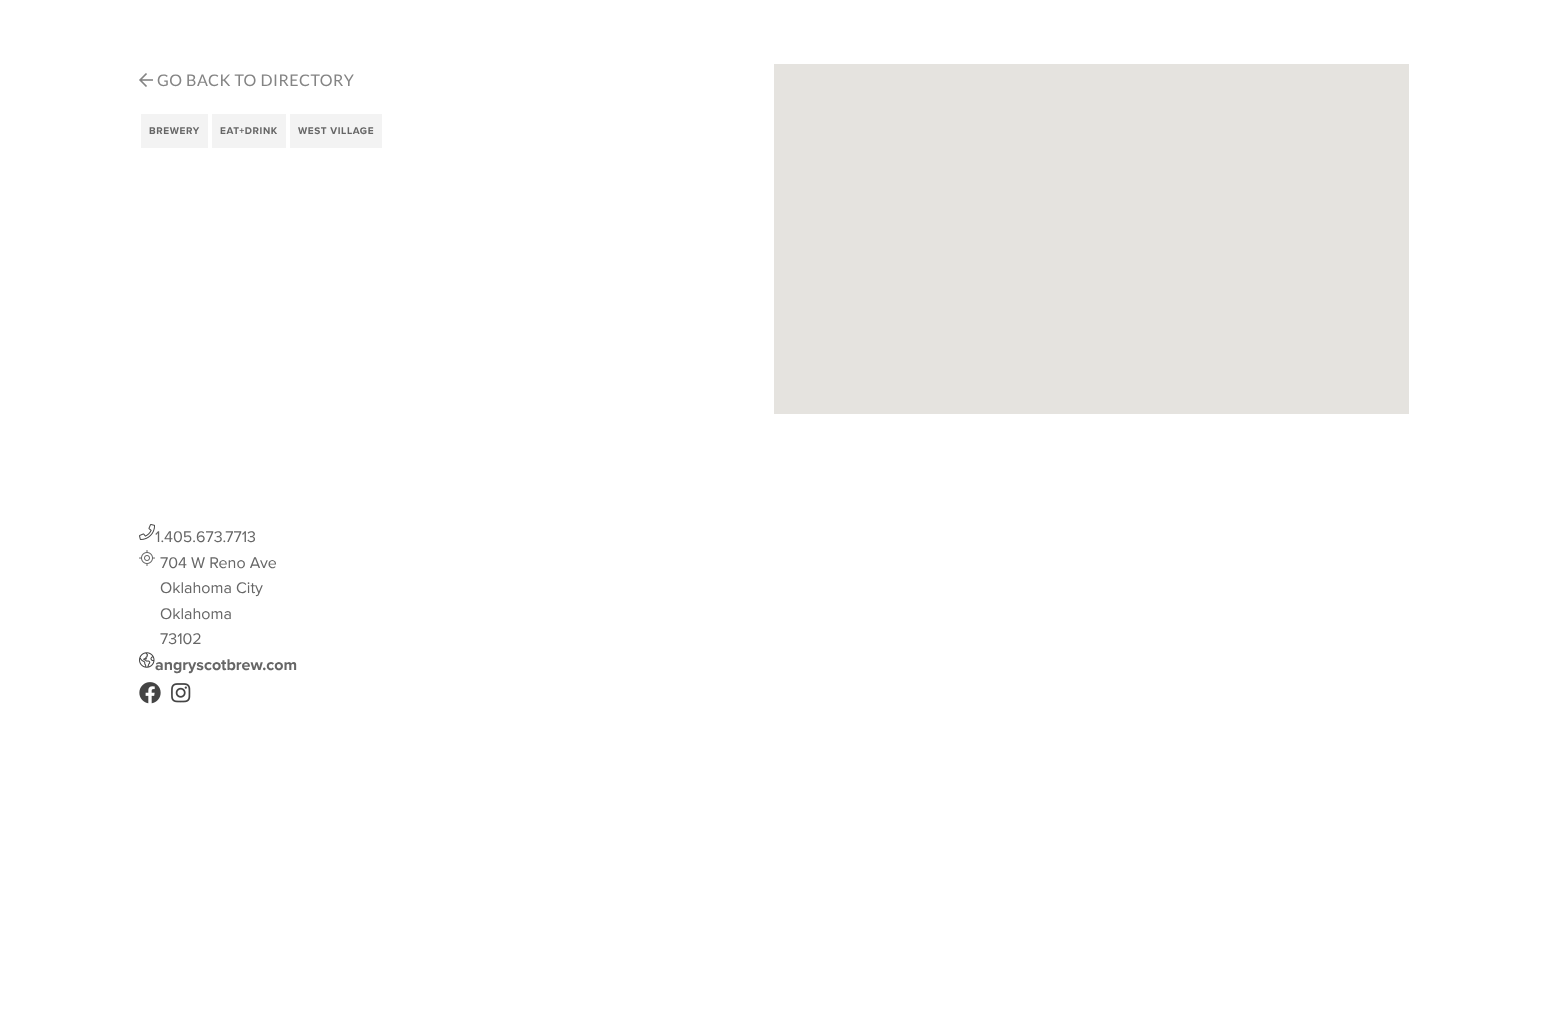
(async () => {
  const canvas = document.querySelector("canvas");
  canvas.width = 1548;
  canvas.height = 1023;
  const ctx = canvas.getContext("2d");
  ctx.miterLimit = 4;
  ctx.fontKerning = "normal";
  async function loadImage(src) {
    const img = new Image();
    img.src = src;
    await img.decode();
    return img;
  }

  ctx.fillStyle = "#ffffff";
  ctx.fillRect(0, 0, 1548, 1023);
  ctx.drawImage(await loadImage("img/1.png"), 139, 73, 14, 14);
  for (const [x, y, w, h, color] of [
    [141, 114, 67, 34, "#f3f3f3"],
    [212, 114, 74, 34, "#f3f3f3"],
    [290, 114, 92, 34, "#f3f3f3"],
  ]) {
    ctx.fillStyle = color;
    ctx.fillRect(x, y, w, h);
  }
  ctx.drawImage(await loadImage("img/2.png"), 139, 524, 16, 16);
  ctx.drawImage(await loadImage("img/3.png"), 139, 550, 16, 16);
  ctx.drawImage(await loadImage("img/4.png"), 139, 652, 16, 16);
  ctx.drawImage(await loadImage("img/5.png"), 139, 682, 22, 22);
  ctx.drawImage(await loadImage("img/6.png"), 171, 683, 20, 20);
  ctx.fillStyle = "#e5e3df";
  ctx.fillRect(774, 64, 635, 350);
  ctx.letterSpacing = "0.5px";
  ctx.font = "16px Lato";
  ctx.fillStyle = "#848484";
  ctx.fillText("GO BACK TO DIRECTORY", 157, 86);
  ctx.letterSpacing = "0.6px";
  ctx.font = "bold 10px Proxima Nova";
  ctx.fillStyle = "#666666";
  for (const [text, x, y] of [
    ["BREWERY", 149, 134],
    ["EAT+DRINK", 220, 134],
    ["WEST VILLAGE", 298, 134],
  ]) {
    ctx.fillText(text, x, y);
  }
  ctx.letterSpacing = "0px";
  ctx.font = "16px Proxima Nova";
  for (const [text, x, y] of [
    ["1.405.673.7713", 155, 542],
    ["704 W Reno Ave", 160, 568],
    ["Oklahoma City", 160, 593],
    ["Oklahoma", 160, 619],
    ["73102", 160, 644],
  ]) {
    ctx.fillText(text, x, y);
  }
  ctx.font = "bold 16px Proxima Nova";
  ctx.fillText("angryscotbrew.com", 155, 670);
})();
